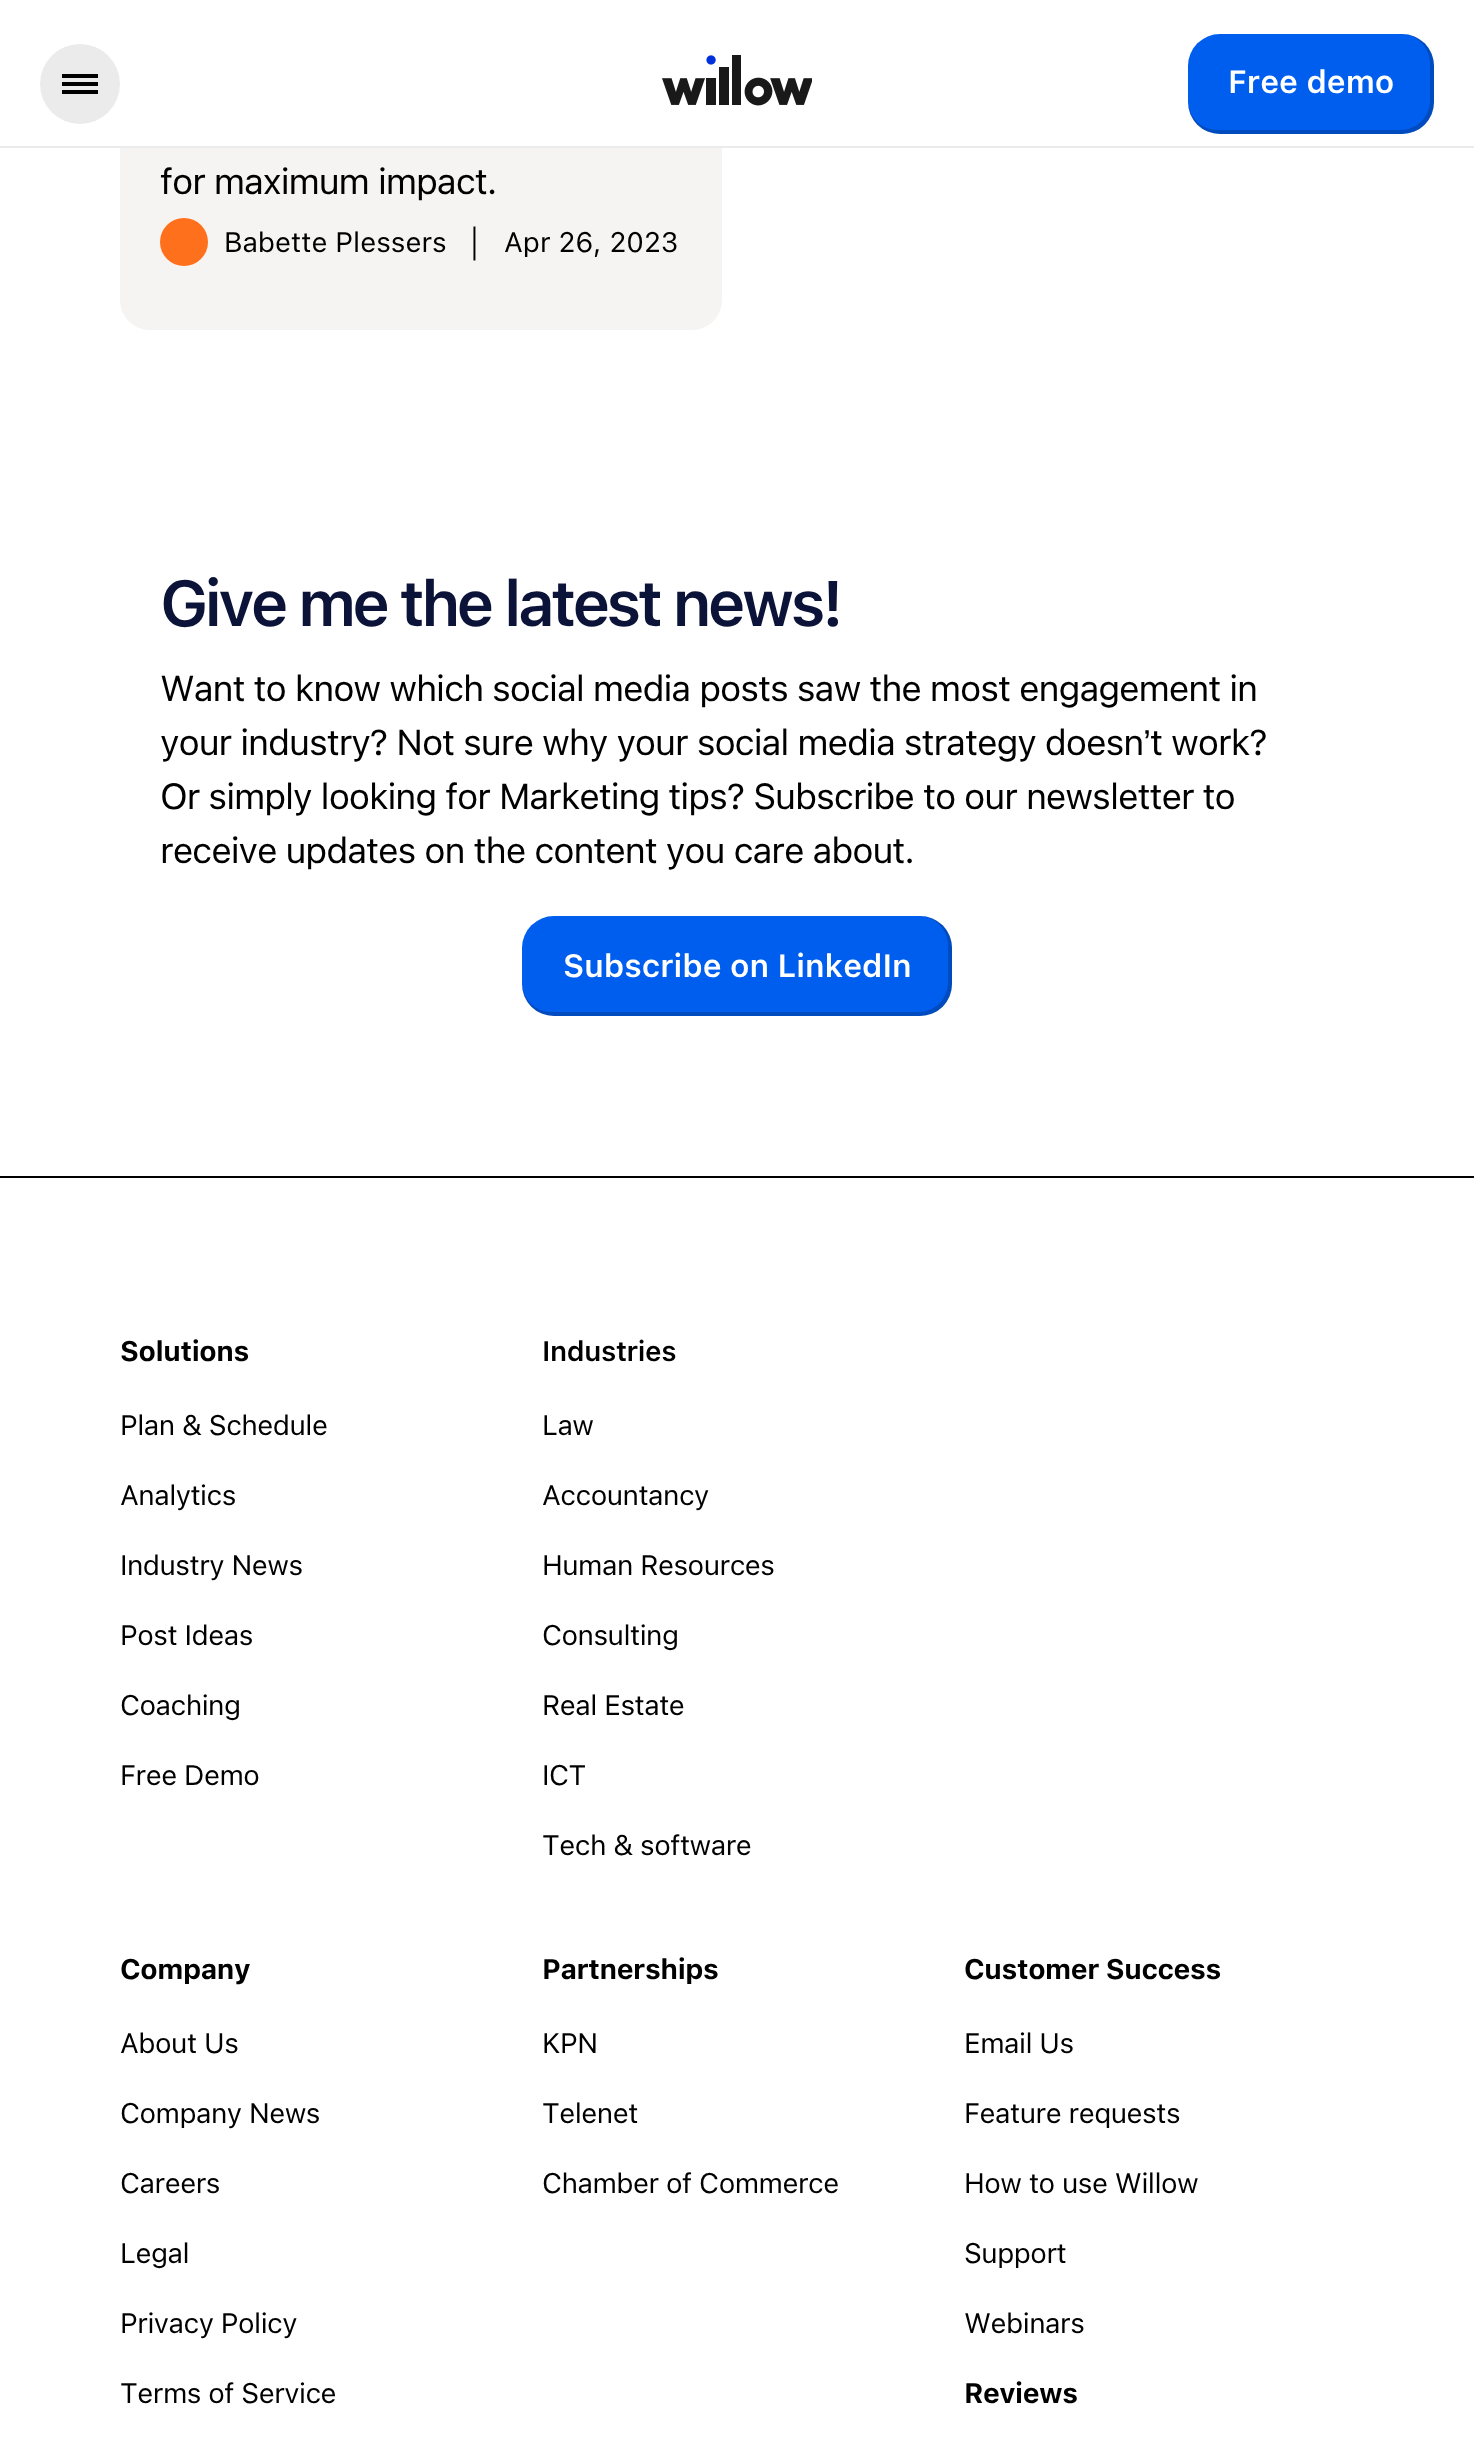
(async () => {
  const canvas = document.querySelector("canvas");
  canvas.width = 1474;
  canvas.height = 2446;
  const ctx = canvas.getContext("2d");
  ctx.miterLimit = 4;
  ctx.fontKerning = "normal";
  async function loadImage(src) {
    const img = new Image();
    img.src = src;
    await img.decode();
    return img;
  }
  let path;

  ctx.fillStyle = "#ffffff";
  ctx.fillRect(0, 0, 1474, 2446);
  ctx.fillStyle = "#f6f4f2";
  ctx.beginPath();
  ctx.roundRect(120, -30, 602, 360, 30);
  ctx.fill();
  ctx.fillStyle = "#ffffff";
  ctx.fillRect(120, 0, 602, 146);
  ctx.fillStyle = "#ebebeb";
  ctx.fillRect(0, 146, 1474, 2);
  ctx.beginPath();
  ctx.arc(80, 84, 40, 0, Math.PI * 2);
  ctx.fill();
  for (const [x, y, w, h, color] of [
    [62, 74, 36, 4, "#000000"],
    [62, 82, 36, 4, "#000000"],
    [62, 90, 36, 4, "#000000"],
  ]) {
    ctx.fillStyle = color;
    ctx.fillRect(x, y, w, h);
  }
  ctx.drawImage(await loadImage("img/1.png"), 662, 55, 150, 51);
  ctx.fillStyle = "#005eee";
  ctx.beginPath();
  ctx.roundRect(1188, 34, 246, 100, 32);
  ctx.fill();
  ctx.fillStyle = "rgba(0, 0, 0, 0.2)";
  path = new Path2D("M1188 100V102C1188 120 1202 134 1220 134H1402C1420 134 1434 120 1434 102V66C1434 48 1420 34 1402 34H1400C1417 34 1430 47 1430 64V100C1430 117 1417 130 1400 130H1218C1201 130 1188 117 1188 100Z");
  ctx.fill(path);
  ctx.fillStyle = "#ff701c";
  ctx.beginPath();
  ctx.arc(184, 242, 24, 0, Math.PI * 2);
  ctx.fill();
  ctx.fillStyle = "#005eee";
  ctx.beginPath();
  ctx.roundRect(522, 916, 430, 100, 32);
  ctx.fill();
  ctx.fillStyle = "rgba(0, 0, 0, 0.2)";
  path = new Path2D("M522 982V984C522 1002 536 1016 554 1016H920C938 1016 952 1002 952 984V948C952 930 938 916 920 916H918C935 916 948 929 948 946V982C948 999 935 1012 918 1012H552C535 1012 522 999 522 982Z");
  ctx.fill(path);
  ctx.fillStyle = "#000000";
  ctx.fillRect(0, 1176, 1474, 2);
  ctx.font = "600 32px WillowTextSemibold";
  ctx.fillStyle = "#ffffff";
  ctx.fillText("Free demo", 1228, 93);
  ctx.letterSpacing = "-1.08px";
  ctx.font = "36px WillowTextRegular";
  ctx.fillStyle = "#000000";
  ctx.fillText("for maximum impact.", 160, 194);
  ctx.letterSpacing = "0px";
  ctx.font = "28px WillowTextRegular";
  ctx.fillText("Babette Plessers", 224, 252);
  ctx.font = "28px Liberation Sans";
  ctx.fillText("│", 467, 252);
  ctx.font = "28px WillowTextRegular";
  ctx.fillText("Apr 26, 2023", 504, 252);
  ctx.letterSpacing = "-3.8px";
  ctx.font = "600 64px WillowTextSemibold";
  ctx.fillStyle = "#0c1338";
  ctx.fillText("Give me the latest news!", 160, 626);
  ctx.letterSpacing = "-1.08px";
  ctx.font = "36px WillowTextRegular";
  ctx.fillStyle = "#000000";
  ctx.fillText("Want to know which social media posts saw the most engagement in", 160, 701);
  ctx.fillText("your industry? Not sure why your social media strategy doesn", 160, 755);
  ctx.font = "36px Liberation Sans";
  ctx.fillText("’", 1143, 755);
  ctx.font = "36px WillowTextRegular";
  for (const [text, x, y] of [
    ["t work?", 1150, 755],
    ["Or simply looking for Marketing tips? Subscribe to our newsletter to", 160, 809],
    ["receive updates on the content you care about.", 160, 863],
  ]) {
    ctx.fillText(text, x, y);
  }
  ctx.letterSpacing = "0px";
  ctx.font = "600 32px WillowTextSemibold";
  ctx.fillStyle = "#ffffff";
  ctx.fillText("Subscribe on LinkedIn", 563, 977);
  ctx.letterSpacing = "-0.4px";
  ctx.font = "bold 28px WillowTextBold";
  ctx.fillStyle = "#000000";
  ctx.fillText("Solutions", 120, 1361);
  ctx.letterSpacing = "-0.5px";
  ctx.font = "28px WillowTextRegular";
  for (const [text, x, y] of [
    ["Plan & Schedule", 120, 1435],
    ["Analytics", 120, 1505],
    ["Industry News", 120, 1575],
    ["Post Ideas", 120, 1645],
    ["Coaching", 120, 1715],
    ["Free Demo", 120, 1785],
  ]) {
    ctx.fillText(text, x, y);
  }
  ctx.letterSpacing = "-0.4px";
  ctx.font = "600 28px WillowTextSemibold";
  ctx.fillText("Industries", 542, 1361);
  ctx.letterSpacing = "-0.5px";
  ctx.font = "28px WillowTextRegular";
  for (const [text, x, y] of [
    ["Law", 542, 1435],
    ["Accountancy", 542, 1505],
    ["Human Resources", 542, 1575],
    ["Consulting", 542, 1645],
    ["Real Estate", 542, 1715],
    ["ICT", 542, 1785],
    ["Tech & software", 542, 1855],
  ]) {
    ctx.fillText(text, x, y);
  }
  ctx.letterSpacing = "-0.4px";
  ctx.font = "bold 28px WillowTextBold";
  ctx.fillText("Company", 120, 1979);
  ctx.letterSpacing = "-0.5px";
  ctx.font = "28px WillowTextRegular";
  for (const [text, x, y] of [
    ["About Us", 120, 2053],
    ["Company News", 120, 2123],
    ["Careers", 120, 2193],
    ["Legal", 120, 2263],
    ["Privacy Policy", 120, 2333],
    ["Terms of Service", 120, 2403],
  ]) {
    ctx.fillText(text, x, y);
  }
  ctx.letterSpacing = "-0.4px";
  ctx.font = "bold 28px WillowTextBold";
  ctx.fillText("Partnerships", 542, 1979);
  ctx.letterSpacing = "-0.5px";
  ctx.font = "28px WillowTextRegular";
  for (const [text, x, y] of [
    ["KPN", 542, 2053],
    ["Telenet", 542, 2123],
    ["Chamber of Commerce", 542, 2193],
  ]) {
    ctx.fillText(text, x, y);
  }
  ctx.letterSpacing = "-0.4px";
  ctx.font = "bold 28px WillowTextBold";
  ctx.fillText("Customer Success", 964, 1979);
  ctx.letterSpacing = "-0.5px";
  ctx.font = "28px WillowTextRegular";
  for (const [text, x, y] of [
    ["Email Us", 964, 2053],
    ["Feature requests", 964, 2123],
    ["How to use Willow", 964, 2193],
    ["Support", 964, 2263],
    ["Webinars", 964, 2333],
  ]) {
    ctx.fillText(text, x, y);
  }
  ctx.font = "bold 28px WillowTextBold";
  ctx.fillText("Reviews", 964, 2403);
})();
